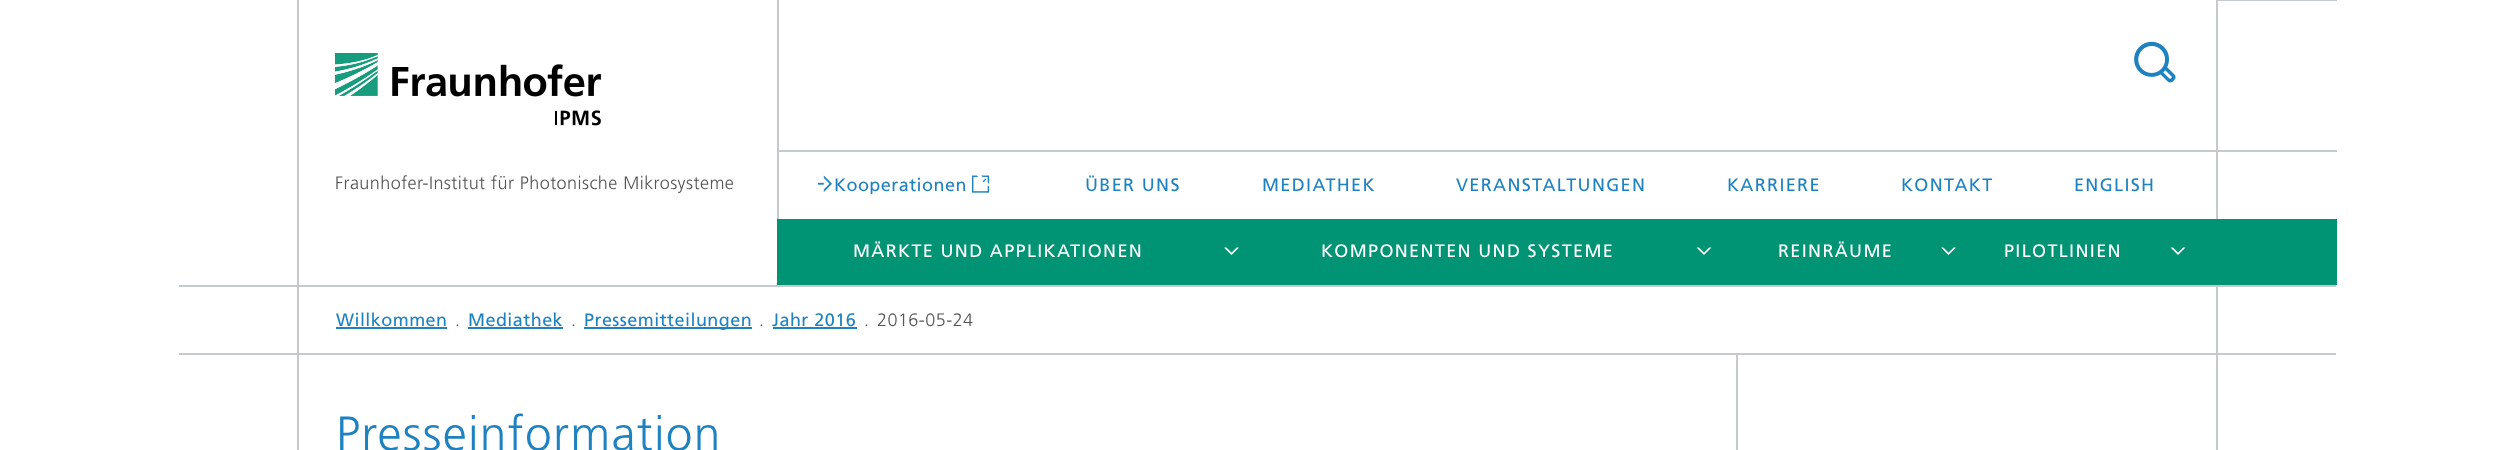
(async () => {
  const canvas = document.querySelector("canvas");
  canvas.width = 2514;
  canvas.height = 450;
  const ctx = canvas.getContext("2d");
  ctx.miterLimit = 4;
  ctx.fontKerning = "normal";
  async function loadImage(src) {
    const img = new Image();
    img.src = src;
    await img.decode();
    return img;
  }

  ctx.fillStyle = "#ffffff";
  ctx.fillRect(0, 0, 2514, 450);
  for (const [x, y, w, h, color] of [
    [297, 0, 2, 353, "#c7cacc"],
    [2217, 0, 120, 1, "#c7cacc"],
    [777, 150, 1560, 2, "#c7cacc"],
  ]) {
    ctx.fillStyle = color;
    ctx.fillRect(x, y, w, h);
  }
  ctx.drawImage(await loadImage("img/1.png"), 335, 53, 266, 73);
  ctx.drawImage(await loadImage("img/2.png"), 2134, 41, 42, 42);
  ctx.fillRect(2216, 0, 2, 219);
  ctx.fillRect(777, 0, 2, 219);
  ctx.drawImage(await loadImage("img/3.png"), 817, 175, 15, 17);
  ctx.drawImage(await loadImage("img/4.png"), 972, 175, 18, 18);
  ctx.fillStyle = "#009374";
  ctx.fillRect(777, 219, 1560, 66);
  ctx.drawImage(await loadImage("img/5.png"), 1224, 247, 15, 8);
  ctx.drawImage(await loadImage("img/6.png"), 1696, 247, 16, 8);
  ctx.drawImage(await loadImage("img/5.png"), 1941, 247, 15, 8);
  ctx.drawImage(await loadImage("img/6.png"), 2170, 247, 16, 8);
  for (const [x, y, w, h, color] of [
    [179, 285, 120, 2, "#c7cacc"],
    [297, 285, 2039, 2, "#c7cacc"],
    [179, 353, 120, 2, "#c7cacc"],
    [297, 353, 2039, 2, "#c7cacc"],
    [2216, 285, 2, 165, "#c7cacc"],
    [336, 327, 111, 2, "#1f82c0"],
    [468, 327, 95, 2, "#1f82c0"],
    [584, 327, 168, 2, "#1f82c0"],
    [773, 327, 84, 2, "#1f82c0"],
    [297, 353, 2, 97, "#c7cacc"],
    [1736, 354, 2, 96, "#c7cacc"],
  ]) {
    ctx.fillStyle = color;
    ctx.fillRect(x, y, w, h);
  }
  ctx.letterSpacing = "0.45px";
  ctx.font = "300 18px Frutiger";
  ctx.fillStyle = "#555555";
  ctx.fillText("Fraunhofer-Institut für Photonische Mikrosysteme", 335, 189);
  ctx.save();
  ctx.beginPath();
  ctx.rect(816, 174, 180, 20);
  ctx.clip();
  ctx.font = "18px Frutiger";
  ctx.fillStyle = "#1f82c0";
  ctx.fillText("Kooperationen", 834, 191);
  ctx.restore();
  ctx.letterSpacing = "1.35px";
  ctx.font = "18px Frutiger";
  ctx.fillStyle = "#1f82c0";
  for (const [text, x, y] of [
    ["ÜBER UNS", 1085, 191],
    ["MEDIATHEK", 1262, 191],
    ["VERANSTALTUNGEN", 1456, 191],
    ["KARRIERE", 1727, 191],
    ["KONTAKT", 1901, 191],
    ["ENGLISH", 2074, 191],
  ]) {
    ctx.fillText(text, x, y);
  }
  ctx.fillStyle = "#ffffff";
  for (const [text, x, y] of [
    ["MÄRKTE UND APPLIKATIONEN", 853, 257],
    ["KOMPONENTEN UND SYSTEME", 1321, 257],
    ["REINRÄUME", 1778, 257],
    ["PILOTLINIEN", 2004, 257],
  ]) {
    ctx.fillText(text, x, y);
  }
  ctx.letterSpacing = "0.45px";
  ctx.fillStyle = "#1f82c0";
  ctx.fillText("Willkommen", 336, 326);
  ctx.font = "300 18px Frutiger";
  ctx.fillStyle = "#555555";
  ctx.fillText(".", 455, 326);
  ctx.font = "18px Frutiger";
  ctx.fillStyle = "#1f82c0";
  ctx.fillText("Mediathek", 468, 326);
  ctx.font = "300 18px Frutiger";
  ctx.fillStyle = "#555555";
  ctx.fillText(".", 571, 326);
  ctx.font = "18px Frutiger";
  ctx.fillStyle = "#1f82c0";
  ctx.fillText("Pressemitteilungen", 584, 326);
  ctx.font = "300 18px Frutiger";
  ctx.fillStyle = "#555555";
  ctx.fillText(".", 759, 326);
  ctx.font = "18px Frutiger";
  ctx.fillStyle = "#1f82c0";
  ctx.fillText("Jahr 2016", 772, 326);
  ctx.font = "300 18px Frutiger";
  ctx.fillStyle = "#555555";
  ctx.fillText(".", 864, 326);
  ctx.fillText("2016-05-24", 877, 326);
  ctx.letterSpacing = "1.25px";
  ctx.font = "300 48px Frutiger";
  ctx.fillStyle = "#1f82c0";
  ctx.fillText("Presseinformation", 336, 450);
})();
